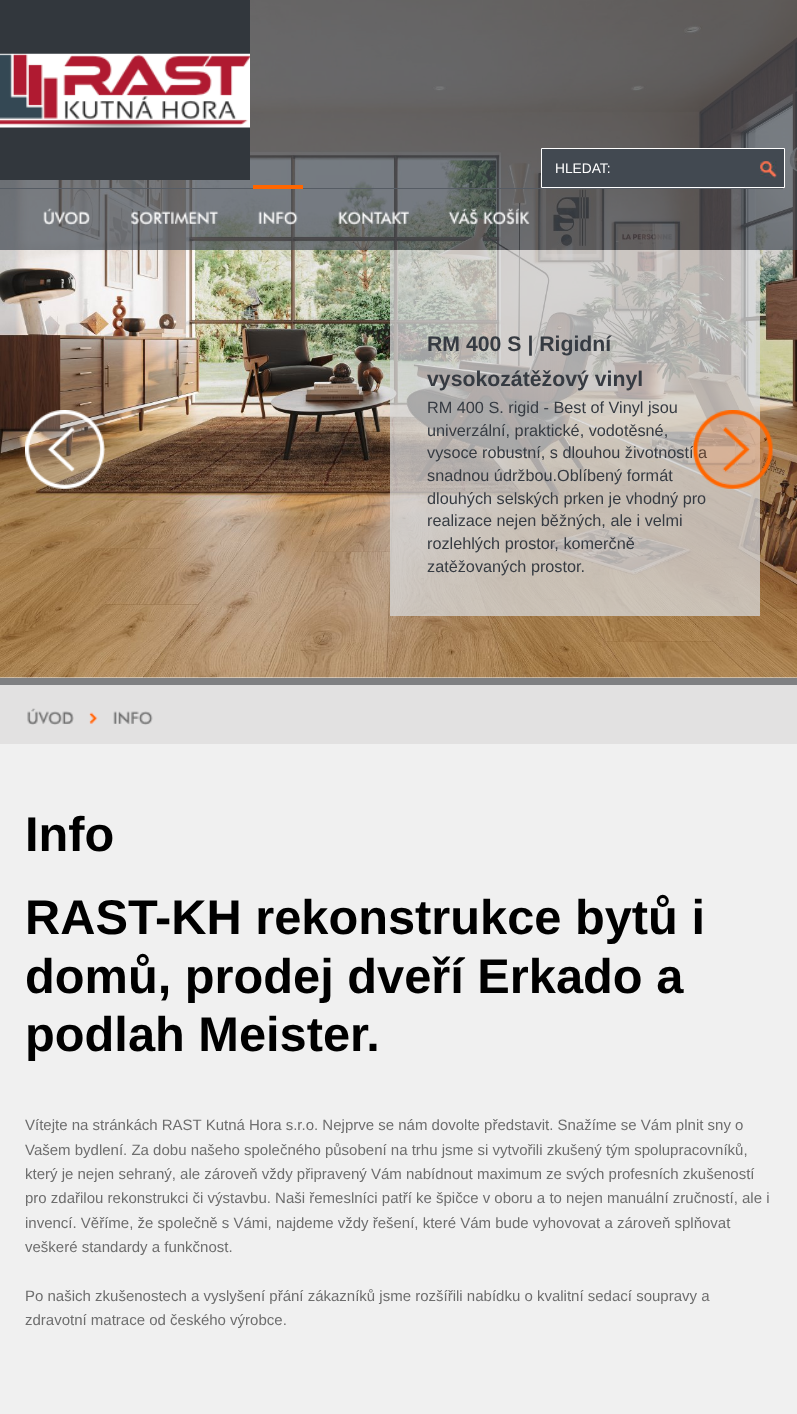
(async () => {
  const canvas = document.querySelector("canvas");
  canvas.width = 797;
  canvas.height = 1414;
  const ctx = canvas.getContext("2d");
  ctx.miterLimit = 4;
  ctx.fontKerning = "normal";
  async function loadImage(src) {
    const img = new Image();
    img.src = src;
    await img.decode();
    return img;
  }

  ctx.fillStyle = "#f0f0f0";
  ctx.fillRect(0, 0, 797, 1414);
  ctx.drawImage(await loadImage("img/10.png"), 0, 0, 797, 678);
  ctx.fillStyle = "rgba(67, 74, 82, 0.7)";
  ctx.fillRect(0, 0, 797, 250);
  ctx.fillStyle = "#32373d";
  ctx.fillRect(0, 0, 250, 180);
  ctx.drawImage(await loadImage("img/1.png"), 0, 53, 250, 75);
  ctx.fillStyle = "#424951";
  ctx.beginPath();
  ctx.rect(541.5, 148.5, 243, 39);
  ctx.fill();
  ctx.strokeStyle = "#ffffff";
  ctx.stroke();
  ctx.drawImage(await loadImage("img/2.png"), 760, 161, 17, 17);
  ctx.fillStyle = "#565c64";
  ctx.fillRect(0, 188, 783, 1);
  ctx.drawImage(await loadImage("img/3.png"), 43, 208, 47, 17);
  ctx.drawImage(await loadImage("img/4.png"), 131, 211, 88, 14);
  ctx.fillStyle = "#ff6600";
  ctx.fillRect(253, 185, 50, 4);
  ctx.drawImage(await loadImage("img/5.png"), 258, 211, 40, 14);
  ctx.drawImage(await loadImage("img/6.png"), 338, 211, 71, 14);
  ctx.drawImage(await loadImage("img/7.png"), 448, 208, 30, 17);
  ctx.drawImage(await loadImage("img/8.png"), 483, 208, 47, 17);
  ctx.drawImage(await loadImage("img/9.png"), 25, 410, 80, 79);
  for (const [x, y, w, h, color] of [
    [0, 678, 797, 7, "#7f8082"],
    [390, 250, 370, 366, "rgba(215, 216, 217, 0.75)"],
    [0, 685, 797, 59, "#e2e1e1"],
  ]) {
    ctx.fillStyle = color;
    ctx.fillRect(x, y, w, h);
  }
  ctx.drawImage(await loadImage("img/12.png"), 89, 712, 9, 12);
  ctx.drawImage(await loadImage("img/13.png"), 27, 708, 47, 17);
  ctx.drawImage(await loadImage("img/14.png"), 113, 711, 40, 14);
  ctx.font = "13.75px Liberation Sans";
  ctx.fillStyle = "#ffffff";
  ctx.fillText("HLEDAT:", 555, 173);
  ctx.font = "bold 21.25px Liberation Sans";
  ctx.fillStyle = "#363b42";
  ctx.fillText("RM 400 S | Rigidní", 427, 351);
  ctx.fillText("vysokozátěžový vinyl", 427, 386);
  ctx.font = "16.25px Liberation Sans";
  for (const [text, x, y] of [
    ["RM 400 S. rigid - Best of Vinyl jsou", 427, 413],
    ["univerzální, praktické, vodotěsné,", 427, 436],
    ["vysoce robustní, s dlouhou životností a", 427, 458],
    ["snadnou údržbou.Oblíbený formát", 427, 481],
    ["dlouhých selských prken je vhodný pro", 427, 504],
    ["realizace nejen běžných, ale i velmi", 427, 526],
    ["rozlehlých prostor, komerčně", 427, 549],
    ["zatěžovaných prostor.", 427, 572],
  ]) {
    ctx.fillText(text, x, y);
  }
  ctx.drawImage(await loadImage("img/11.png"), 692, 410, 81, 79);
  ctx.font = "bold 48.75px Liberation Sans";
  ctx.fillStyle = "#000000";
  for (const [text, x, y] of [
    ["Info", 25, 851],
    ["RAST-KH rekonstrukce bytů i", 25, 934],
    ["domů, prodej dveří Erkado a", 25, 993],
    ["podlah Meister.", 25, 1051],
  ]) {
    ctx.fillText(text, x, y);
  }
  ctx.font = "15px Liberation Sans";
  ctx.fillStyle = "#6e6e6e";
  for (const [text, x, y] of [
    ["Vítejte na stránkách RAST Kutná Hora s.r.o. Nejprve se nám dovolte představit. Snažíme se Vám plnit sny o", 25, 1130],
    ["Vašem bydlení. Za dobu našeho společného působení na trhu jsme si vytvořili zkušený tým spolupracovníků,", 25, 1155],
    ["který je nejen sehraný, ale zároveň vždy připravený Vám nabídnout maximum ze svých profesních zkušeností", 25, 1179],
    ["pro zdařilou rekonstrukci či výstavbu. Naši řemeslníci patří ke špičce v oboru a to nejen manuální zručností, ale i", 25, 1203],
    ["invencí. Věříme, že společně s Vámi, najdeme vždy řešení, které Vám bude vyhovovat a zároveň splňovat", 25, 1228],
    ["veškeré standardy a funkčnost.", 25, 1252],
    ["Po našich zkušenostech a vyslyšení přání zákazníků jsme rozšířili nabídku o kvalitní sedací soupravy a", 25, 1301],
    ["zdravotní matrace od českého výrobce.", 25, 1325],
  ]) {
    ctx.fillText(text, x, y);
  }
})();
